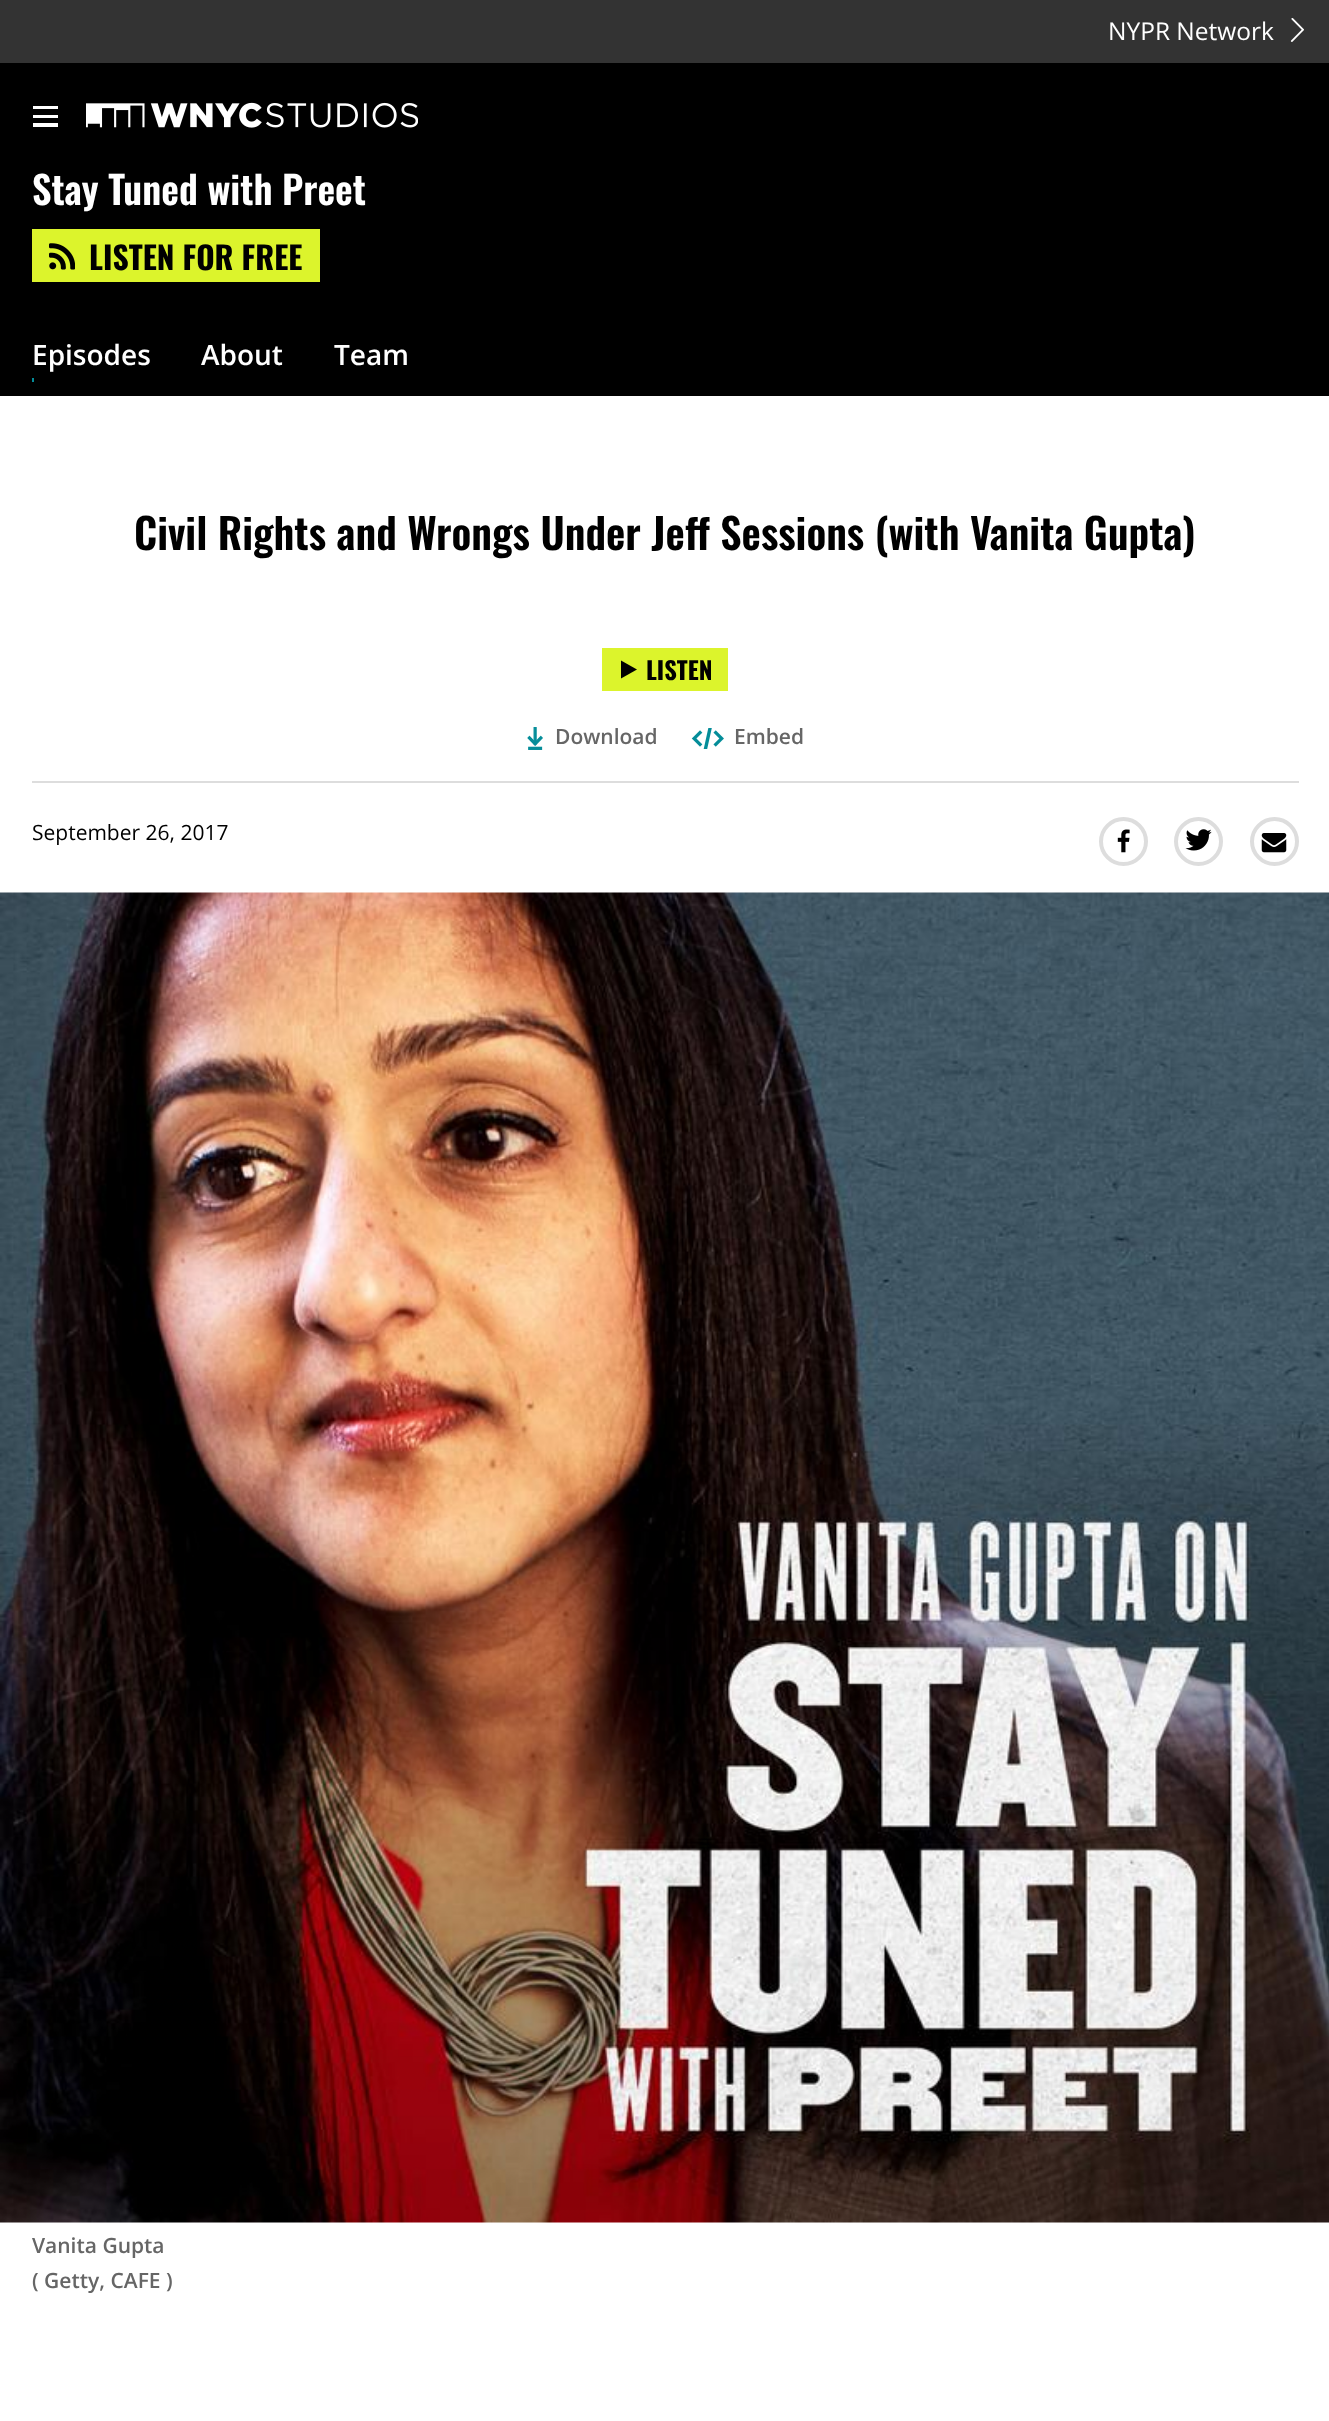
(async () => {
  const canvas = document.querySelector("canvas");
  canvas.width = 1329;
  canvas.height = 2421;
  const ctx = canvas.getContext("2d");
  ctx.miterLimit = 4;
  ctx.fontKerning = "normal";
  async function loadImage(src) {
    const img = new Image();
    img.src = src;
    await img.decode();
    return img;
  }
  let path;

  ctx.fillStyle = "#ffffff";
  ctx.fillRect(0, 0, 1329, 2421);
  ctx.fillStyle = "#333333";
  ctx.fillRect(0, 0, 1329, 63);
  ctx.drawImage(await loadImage("img/1.png"), 1290, 18, 14, 24);
  for (const [x, y, w, h, color] of [
    [0, 63, 1329, 333, "#000000"],
    [33, 106, 25, 3, "#ffffff"],
    [33, 115, 25, 3, "#ffffff"],
    [33, 123, 25, 4, "#ffffff"],
  ]) {
    ctx.fillStyle = color;
    ctx.fillRect(x, y, w, h);
  }
  ctx.drawImage(await loadImage("img/2.png"), 86, 102, 332, 26);
  ctx.fillStyle = "#dcf42c";
  ctx.fillRect(32, 229, 288, 53);
  ctx.drawImage(await loadImage("img/3.png"), 49, 243, 26, 27);
  ctx.fillStyle = "#048d99";
  ctx.fillRect(32, 378, 2, 4);
  ctx.fillStyle = "#dcf42c";
  ctx.fillRect(602, 648, 126, 43);
  ctx.fillStyle = "#000000";
  path = new Path2D("M637 669.5L621 678.5V660.5Z");
  ctx.fill(path, "evenodd");
  ctx.drawImage(await loadImage("img/4.png"), 527, 727, 16, 23);
  ctx.drawImage(await loadImage("img/5.png"), 691, 728, 33, 21);
  ctx.fillStyle = "#dddddd";
  ctx.fillRect(32, 781, 1267, 2);
  ctx.beginPath();
  ctx.arc(1123.5, 841.5, 22.5, 0, Math.PI * 2);
  ctx.strokeStyle = "#dddddd";
  ctx.lineWidth = 4;
  ctx.stroke();
  ctx.drawImage(await loadImage("img/6.png"), 1117, 829, 13, 24);
  ctx.beginPath();
  ctx.arc(1198.5, 841.5, 22.5, 0, Math.PI * 2);
  ctx.stroke();
  ctx.drawImage(await loadImage("img/7.png"), 1185, 829, 27, 22);
  ctx.beginPath();
  ctx.arc(1274.5, 841.5, 22.5, 0, Math.PI * 2);
  ctx.stroke();
  ctx.drawImage(await loadImage("img/8.png"), 1261, 833, 26, 20);
  ctx.drawImage(await loadImage("img/9.png"), 0, 892, 1329, 1331);
  ctx.font = "24.5px Open Sans";
  ctx.fillStyle = "#ffffff";
  ctx.fillText("NYPR Network", 1108, 40);
  ctx.font = "600 38.5px Oswald";
  ctx.fillText("Stay Tuned with Preet", 32, 205);
  ctx.font = "bold 31.5px Oswald";
  ctx.fillStyle = "#000000";
  ctx.fillText("LISTEN FOR FREE", 89, 270);
  ctx.font = "600 28px Open Sans";
  ctx.fillStyle = "#ffffff";
  for (const [text, x, y] of [
    ["Episodes", 32, 365],
    ["About", 201, 365],
    ["Team", 334, 365],
  ]) {
    ctx.fillText(text, x, y);
  }
  ctx.font = "600 42px Oswald";
  ctx.fillStyle = "#000000";
  ctx.fillText("Civil Rights and Wrongs Under Jeff Sessions (with Vanita Gupta)", 134, 550);
  ctx.font = "bold 24.5px Oswald";
  ctx.fillText("LISTEN", 646, 680);
  ctx.font = "600 21px Open Sans";
  ctx.fillStyle = "#666666";
  ctx.fillText("Download", 555, 744);
  ctx.fillText("Embed", 734, 744);
  ctx.font = "21px Open Sans";
  ctx.fillStyle = "#000000";
  ctx.fillText("September 26, 2017", 32, 840);
  ctx.font = "600 21px Open Sans";
  ctx.fillStyle = "#666666";
  ctx.fillText("Vanita Gupta", 32, 2253);
  ctx.fillText("( Getty, CAFE )", 32, 2288);
})();
